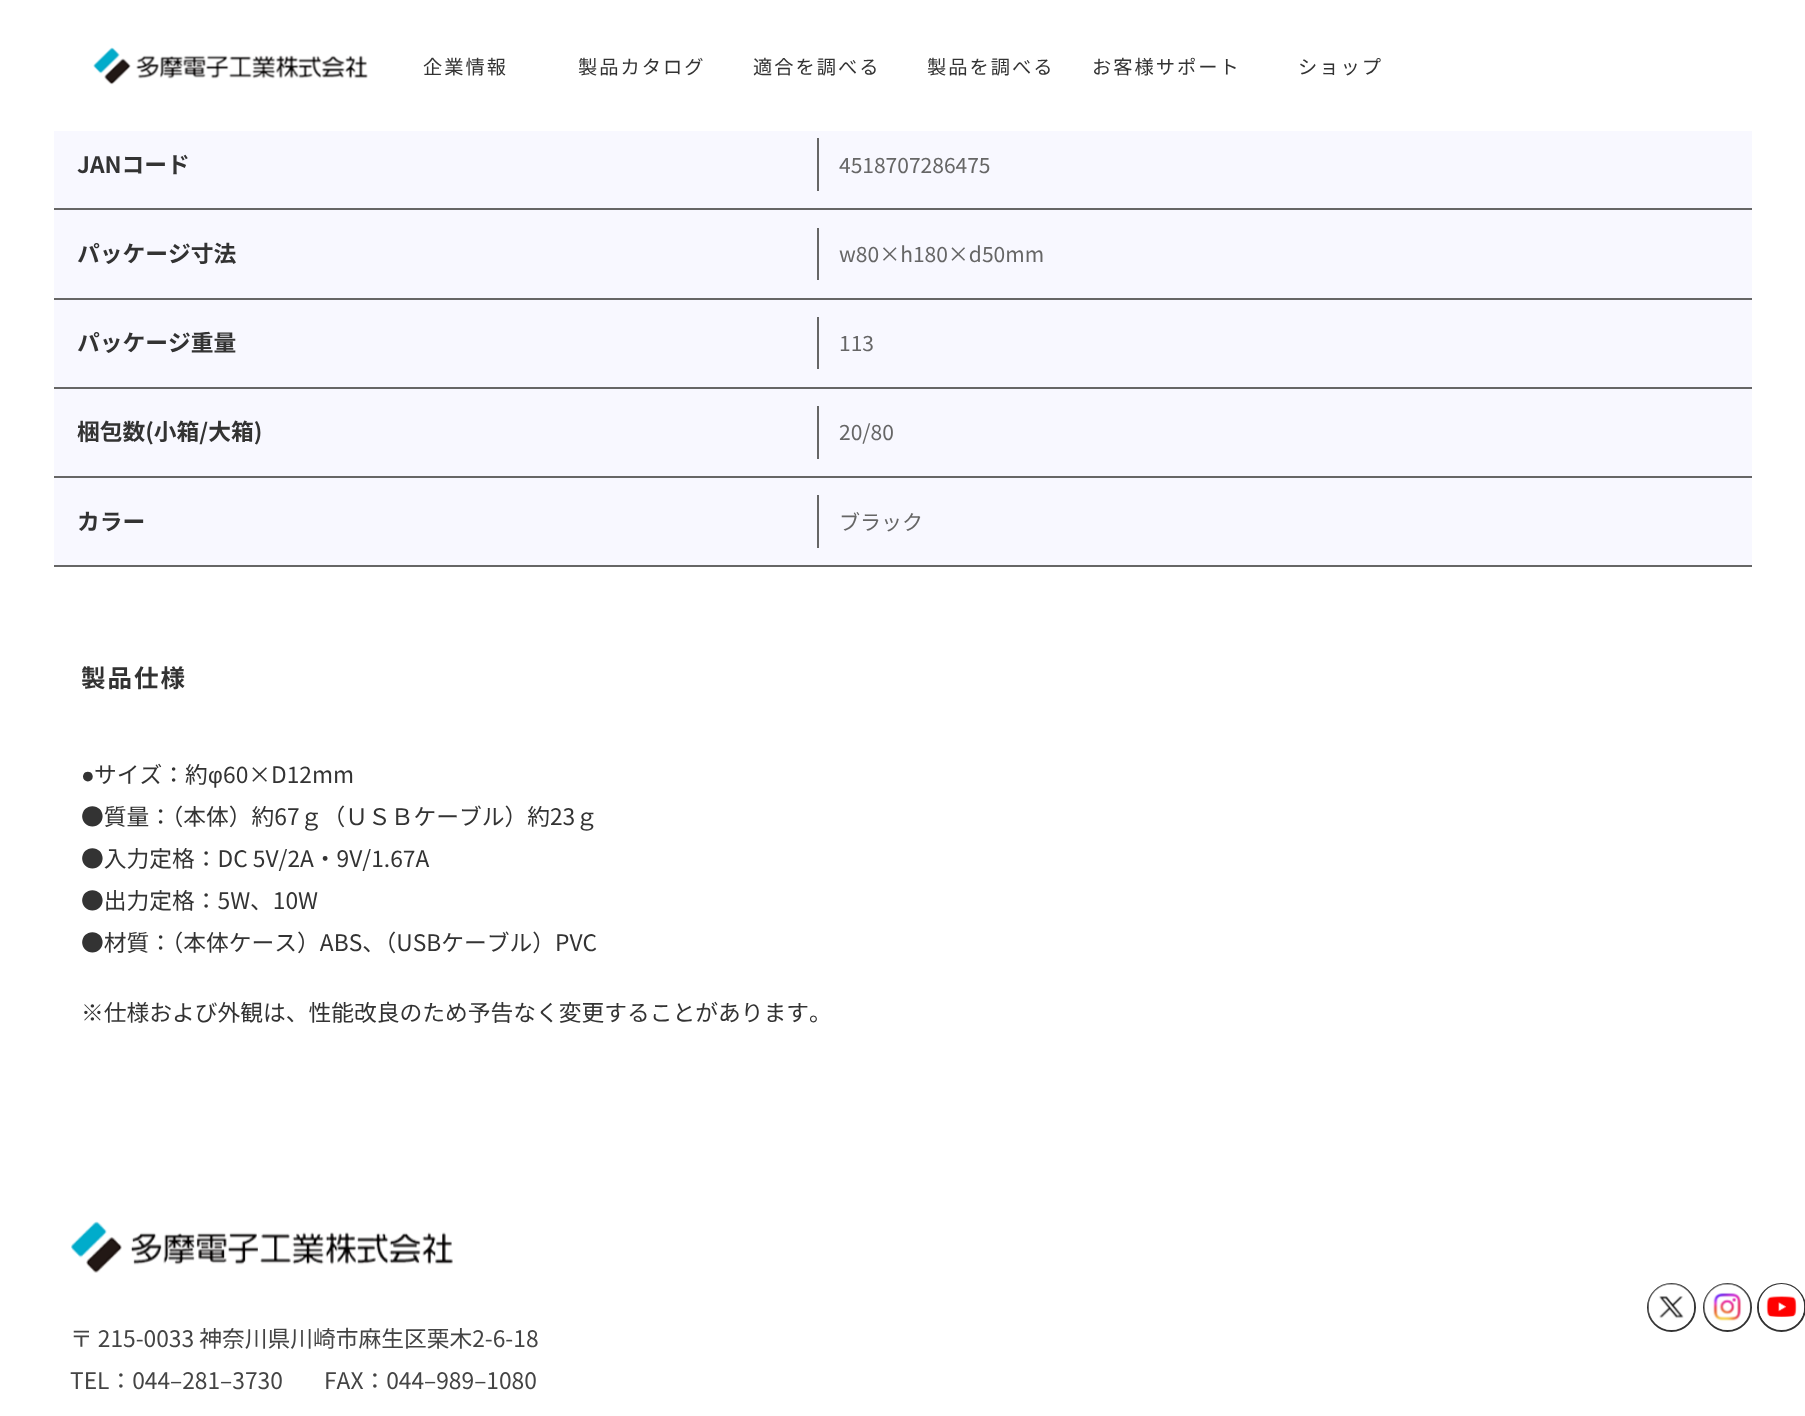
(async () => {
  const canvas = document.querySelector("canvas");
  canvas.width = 1805;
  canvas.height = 1416;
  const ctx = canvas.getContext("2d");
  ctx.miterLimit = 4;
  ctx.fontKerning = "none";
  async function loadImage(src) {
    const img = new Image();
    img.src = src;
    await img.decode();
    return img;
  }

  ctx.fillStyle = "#ffffff";
  ctx.fillRect(0, 0, 1805, 1416);
  ctx.drawImage(await loadImage("img/1.png"), 93, 47, 275, 38);
  for (const [x, y, w, h, color] of [
    [54, 131, 1698, 434, "#f8f8ff"],
    [54, 565, 1698, 2, "#666666"],
    [817, 138, 2, 53, "#666666"],
    [54, 208, 1698, 2, "#666666"],
    [817, 228, 2, 52, "#666666"],
    [54, 298, 1698, 2, "#666666"],
    [817, 317, 2, 52, "#666666"],
    [54, 387, 1698, 2, "#666666"],
    [817, 406, 2, 53, "#666666"],
    [54, 476, 1698, 2, "#666666"],
    [817, 495, 2, 53, "#666666"],
  ]) {
    ctx.fillStyle = color;
    ctx.fillRect(x, y, w, h);
  }
  ctx.beginPath();
  ctx.arc(1671.5, 1307.5, 23.5, 0, Math.PI * 2);
  ctx.strokeStyle = "#333333";
  ctx.lineWidth = 2;
  ctx.stroke();
  ctx.drawImage(await loadImage("img/2.png"), 1648, 1283, 47, 47);
  ctx.beginPath();
  ctx.arc(1727.5, 1307.5, 23.5, 0, Math.PI * 2);
  ctx.stroke();
  ctx.drawImage(await loadImage("img/3.png"), 1704, 1283, 47, 47);
  ctx.beginPath();
  ctx.arc(1781.5, 1307.5, 23.5, 0, Math.PI * 2);
  ctx.stroke();
  ctx.drawImage(await loadImage("img/4.png"), 1758, 1284, 47, 46);
  ctx.drawImage(await loadImage("img/5.png"), 71, 1221, 382, 52);
  ctx.letterSpacing = "2px";
  ctx.font = "19.25px Noto Sans JP";
  ctx.fillStyle = "#333333";
  for (const [text, x, y] of [
    ["企業情報", 423, 74],
    ["製品カタログ", 578, 74],
    ["適合を調べる", 753, 74],
    ["製品を調べる", 927, 74],
    ["お客様サポート", 1092, 74],
    ["ショップ", 1298, 74],
  ]) {
    ctx.fillText(text, x, y);
  }
  ctx.letterSpacing = "0px";
  ctx.font = "bold 22.75px Noto Sans JP";
  ctx.fillText("JANコード", 77, 173);
  ctx.font = "21px Noto Sans JP";
  ctx.fillStyle = "#666666";
  ctx.fillText("4518707286475", 839, 173);
  ctx.font = "bold 22.75px Noto Sans JP";
  ctx.fillStyle = "#333333";
  ctx.fillText("パッケージ寸法", 77, 262);
  ctx.font = "21px Noto Sans JP";
  ctx.fillStyle = "#666666";
  ctx.fillText("w80×h180×d50mm", 839, 262);
  ctx.font = "bold 22.75px Noto Sans JP";
  ctx.fillStyle = "#333333";
  ctx.fillText("パッケージ重量", 77, 351);
  ctx.font = "21px Noto Sans JP";
  ctx.fillStyle = "#666666";
  ctx.fillText("113", 839, 351);
  ctx.font = "bold 22.75px Noto Sans JP";
  ctx.fillStyle = "#333333";
  ctx.fillText("梱包数(小箱/大箱)", 77, 440);
  ctx.font = "21px Noto Sans JP";
  ctx.fillStyle = "#666666";
  ctx.fillText("20/80", 839, 440);
  ctx.font = "bold 22.75px Noto Sans JP";
  ctx.fillStyle = "#333333";
  ctx.fillText("カラー", 77, 530);
  ctx.font = "21px Noto Sans JP";
  ctx.fillStyle = "#666666";
  ctx.fillText("ブラック", 839, 530);
  ctx.letterSpacing = "2px";
  ctx.font = "bold 24.5px Noto Sans JP";
  ctx.fillStyle = "#333333";
  ctx.fillText("製品仕様", 81, 687);
  ctx.letterSpacing = "0px";
  ctx.font = "22.75px Liberation Sans";
  ctx.fillText("●", 81, 783);
  ctx.font = "22.75px Noto Sans JP";
  ctx.fillText("サイズ：約", 94, 783);
  ctx.font = "22.75px Liberation Sans";
  ctx.fillText("φ", 208, 783);
  ctx.font = "22.75px Noto Sans JP";
  for (const [text, x, y] of [
    ["60×D12mm", 223, 783],
    ["●質量：（本体）約67ｇ（ＵＳＢケーブル）約23ｇ", 81, 825],
    ["●入力定格：DC 5V/2A・9V/1.67A", 81, 867],
    ["●出力定格：5W、10W", 81, 909],
    ["●材質：（本体ケース）ABS、（USBケーブル）PVC", 81, 951],
    ["※仕様および外観は、性能改良のため予告なく変更することがあります。", 81, 1021],
  ]) {
    ctx.fillText(text, x, y);
  }
  ctx.fillStyle = "#444444";
  for (const [text, x, y] of [
    ["〒 215-0033 神奈川県川崎市麻生区栗木2-6-18", 70, 1347],
    ["TEL：044–281–3730", 70, 1389],
    ["FAX：044–989–1080", 324, 1389],
  ]) {
    ctx.fillText(text, x, y);
  }
})();
